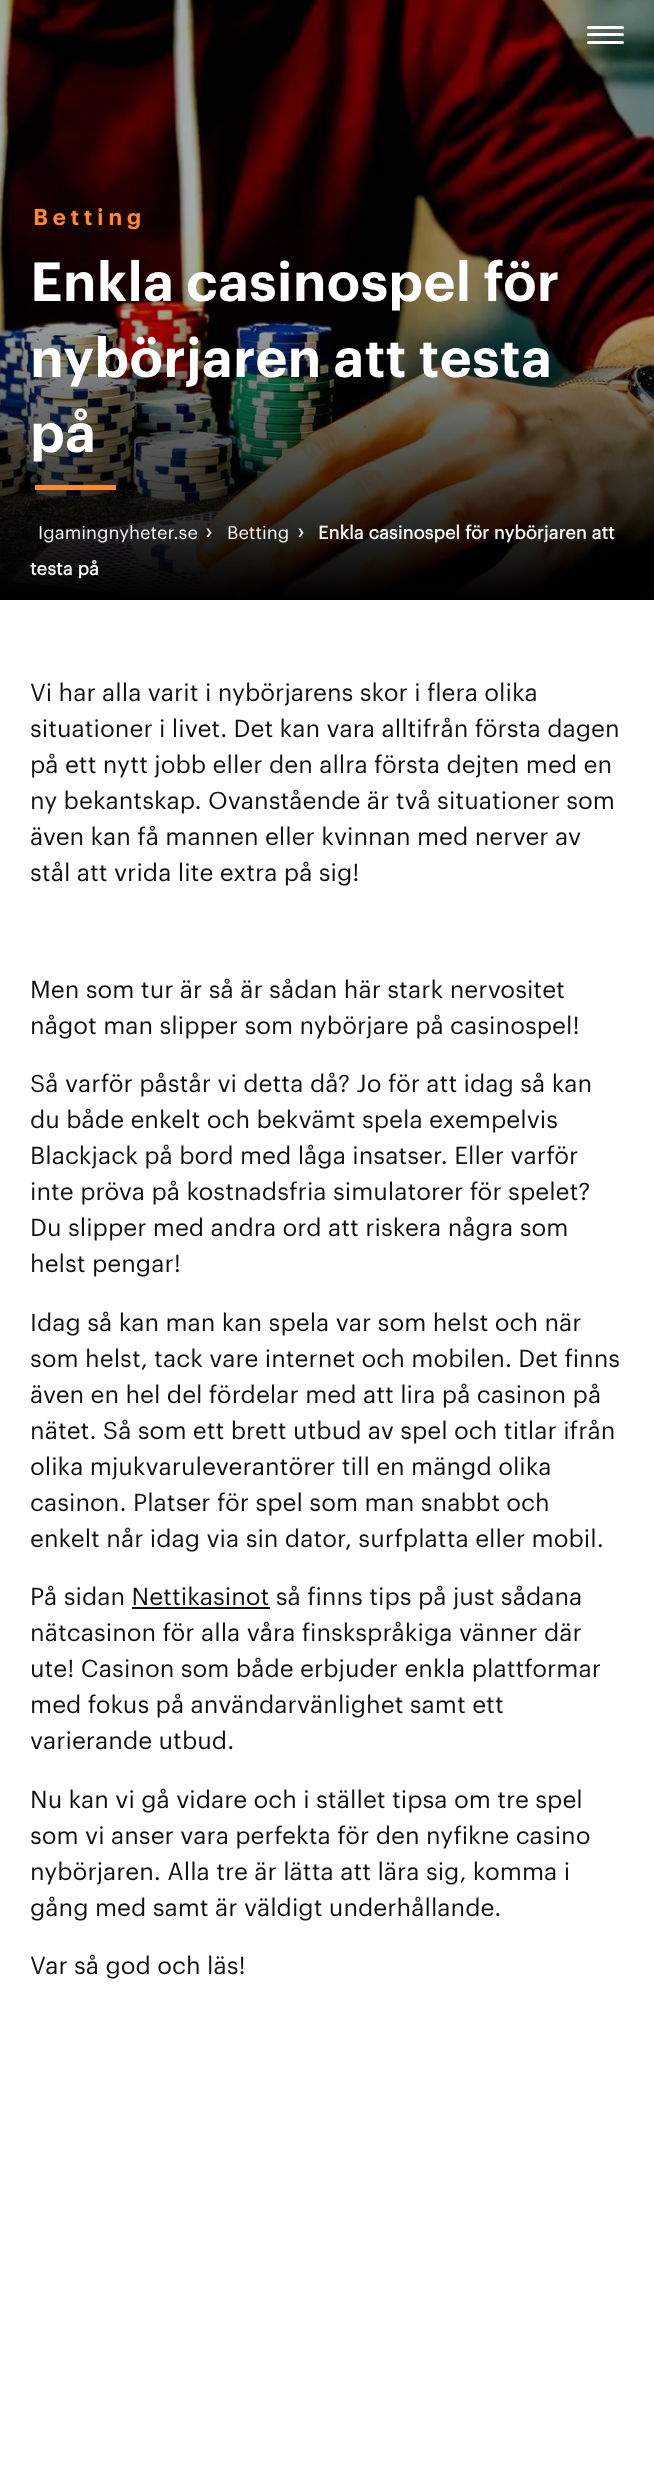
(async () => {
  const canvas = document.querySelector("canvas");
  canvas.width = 654;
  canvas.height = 2488;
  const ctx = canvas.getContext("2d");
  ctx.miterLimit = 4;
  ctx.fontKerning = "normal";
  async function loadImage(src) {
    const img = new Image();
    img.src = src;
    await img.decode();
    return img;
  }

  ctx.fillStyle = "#ffffff";
  ctx.fillRect(0, 0, 654, 2488);
  ctx.drawImage(await loadImage("img/1.png"), 0, 0, 654, 600);
  ctx.beginPath();
  ctx.roundRect(587, 33, 37, 3, 1.5);
  ctx.fill();
  ctx.beginPath();
  ctx.roundRect(587, 26, 37, 3, 1.5);
  ctx.fill();
  ctx.beginPath();
  ctx.roundRect(587, 41, 37, 3, 1.5);
  ctx.fill();
  ctx.fillStyle = "#ff892d";
  ctx.fillRect(35, 485, 81, 5);
  ctx.fillStyle = "#101010";
  ctx.fillRect(132, 1607, 138, 2);
  ctx.letterSpacing = "4.5px";
  ctx.font = "600 22.5px Graphik";
  ctx.fillStyle = "#ff892d";
  ctx.fillText("Betting", 33, 225);
  ctx.letterSpacing = "0px";
  ctx.font = "600 54px Graphik";
  ctx.fillStyle = "#ffffff";
  for (const [text, x, y] of [
    ["Enkla casinospel för", 30, 301],
    ["nybörjaren att testa", 30, 377],
    ["på", 30, 452],
  ]) {
    ctx.fillText(text, x, y);
  }
  ctx.font = "18px Graphik";
  ctx.fillStyle = "#f6f6f6";
  ctx.fillText("Igamingnyheter.se", 38, 539);
  ctx.font = "24px Graphik";
  ctx.fillText("›", 205, 539);
  ctx.font = "18px Graphik";
  ctx.fillText("Betting", 227, 539);
  ctx.font = "24px Graphik";
  ctx.fillText("›", 297, 539);
  ctx.font = "bold 18px Graphik";
  ctx.fillText("Enkla casinospel för nybörjaren att", 318, 539);
  ctx.fillText("testa på", 30, 575);
  ctx.font = "24px Graphik";
  ctx.fillStyle = "#101010";
  for (const [text, x, y] of [
    ["Vi har alla varit i nybörjarens skor i flera olika", 30, 701],
    ["situationer i livet. Det kan vara alltifrån första dagen", 30, 737],
    ["på ett nytt jobb eller den allra första dejten med en", 30, 773],
    ["ny bekantskap. Ovanstående är två situationer som", 30, 809],
    ["även kan få mannen eller kvinnan med nerver av", 30, 845],
    ["stål att vrida lite extra på sig!", 30, 881],
    ["Men som tur är så är sådan här stark nervositet", 30, 998],
    ["något man slipper som nybörjare på casinospel!", 30, 1034],
    ["Så varför påstår vi detta då? Jo för att idag så kan", 30, 1092],
    ["du både enkelt och bekvämt spela exempelvis", 30, 1128],
    ["Blackjack på bord med låga insatser. Eller varför", 30, 1164],
    ["inte pröva på kostnadsfria simulatorer för spelet?", 30, 1200],
    ["Du slipper med andra ord att riskera några som", 30, 1236],
    ["helst pengar!", 30, 1272],
    ["Idag så kan man kan spela var som helst och när", 30, 1331],
    ["som helst, tack vare internet och mobilen. Det finns", 30, 1367],
    ["även en hel del fördelar med att lira på casinon på", 30, 1403],
    ["nätet. Så som ett brett utbud av spel och titlar ifrån", 30, 1439],
    ["olika mjukvaruleverantörer till en mängd olika", 30, 1475],
    ["casinon. Platser för spel som man snabbt och", 30, 1511],
    ["enkelt når idag via sin dator, surfplatta eller mobil.", 30, 1547],
    ["På sidan Nettikasinot så finns tips på just sådana", 30, 1605],
    ["nätcasinon för alla våra finskspråkiga vänner där", 30, 1641],
    ["ute! Casinon som både erbjuder enkla plattformar", 30, 1677],
    ["med fokus på användarvänlighet samt ett", 30, 1713],
    ["varierande utbud.", 30, 1749],
    ["Nu kan vi gå vidare och i stället tipsa om tre spel", 30, 1808],
    ["som vi anser vara perfekta för den nyfikne casino", 30, 1844],
    ["nybörjaren. Alla tre är lätta att lära sig, komma i", 30, 1880],
    ["gång med samt är väldigt underhållande.", 30, 1916],
    ["Var så god och läs!", 30, 1974],
  ]) {
    ctx.fillText(text, x, y);
  }
})();
